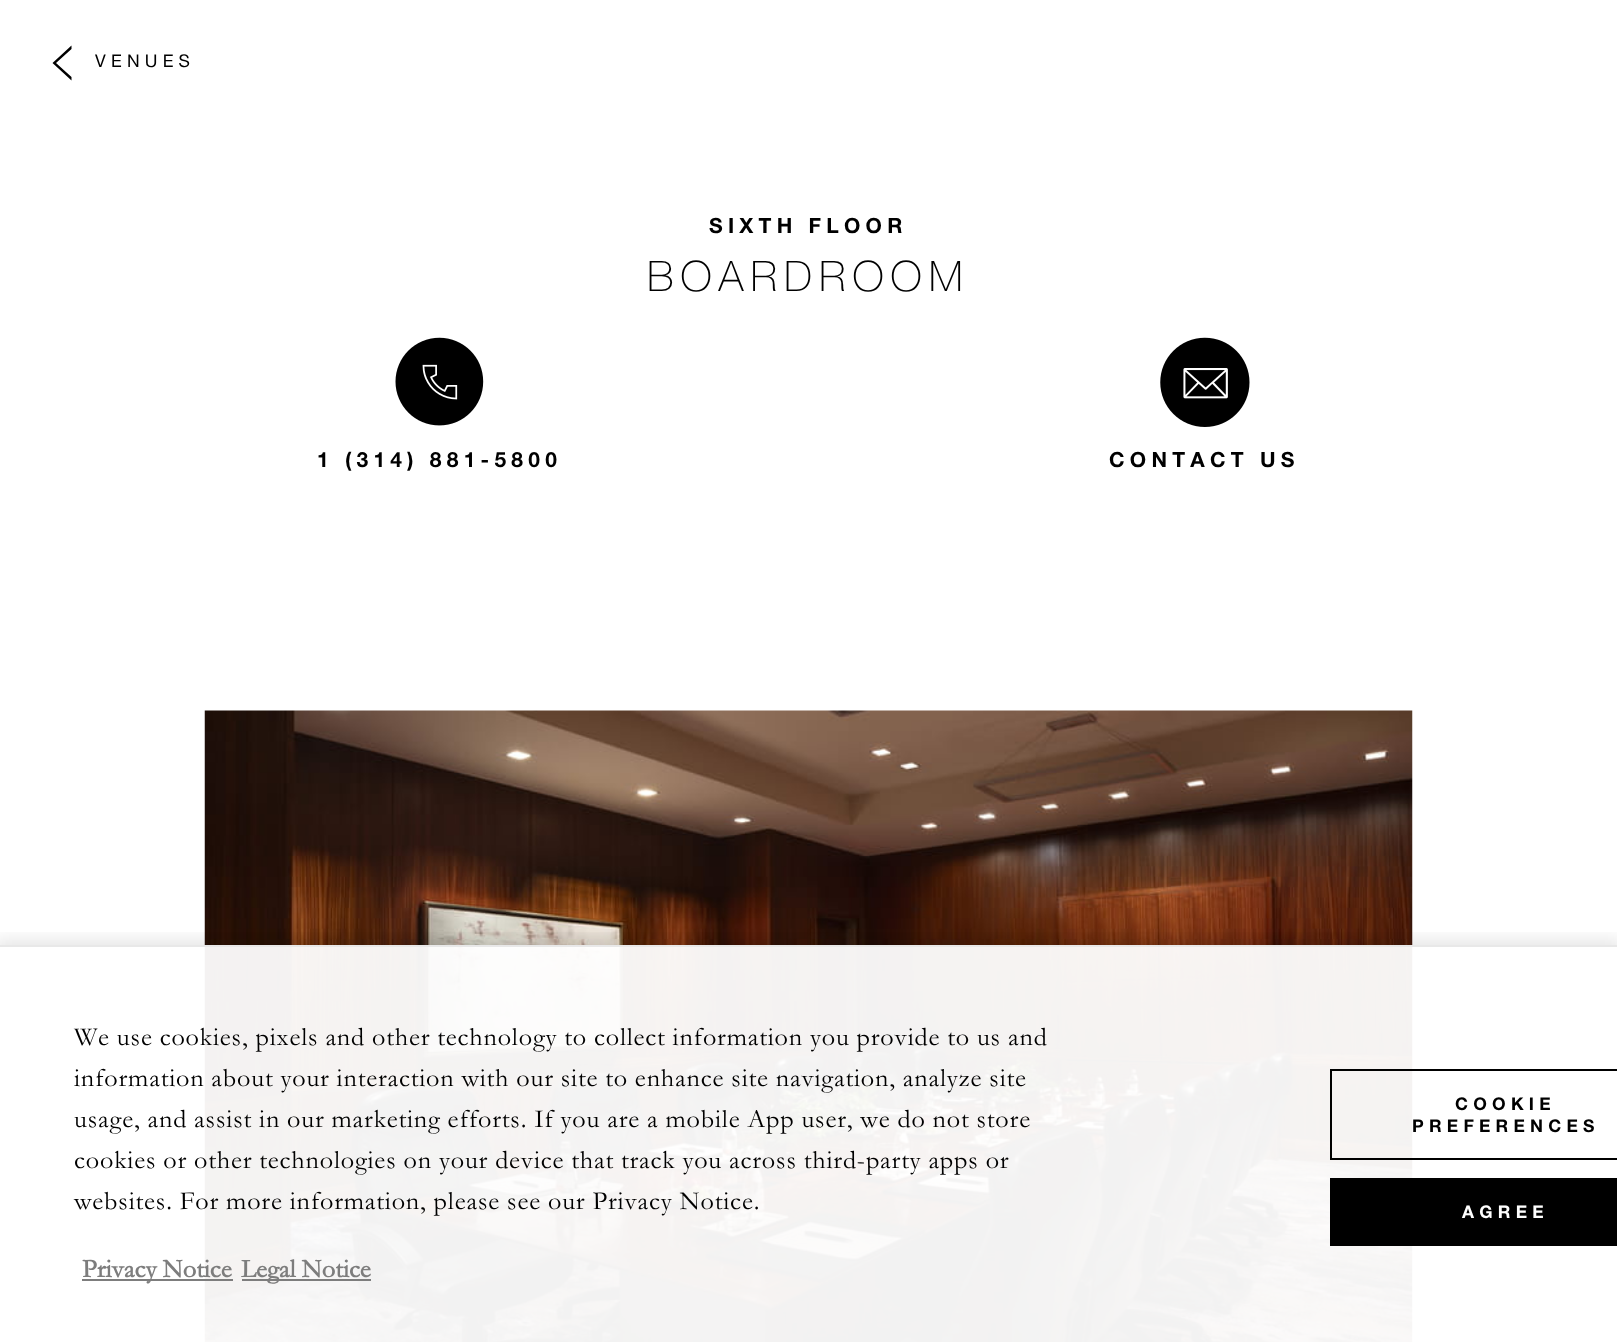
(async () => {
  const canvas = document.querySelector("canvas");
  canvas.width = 1617;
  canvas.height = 1342;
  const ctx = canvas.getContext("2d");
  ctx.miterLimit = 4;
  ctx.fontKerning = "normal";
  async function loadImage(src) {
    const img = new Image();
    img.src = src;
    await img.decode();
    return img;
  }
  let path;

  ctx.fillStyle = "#ffffff";
  ctx.fillRect(0, 0, 1617, 1342);
  ctx.fillStyle = "#000000";
  path = new Path2D("M71.5 45.5L52.5 63L71.5 80.5V77L56 63L71.5 49Z");
  ctx.fill(path);
  ctx.drawImage(await loadImage("img/1.png"), 395, 337, 89, 89);
  ctx.drawImage(await loadImage("img/2.png"), 1160, 337, 90, 90);
  ctx.drawImage(await loadImage("img/3.png"), 204, 710, 1209, 632);
  ctx.save();
  ctx.beginPath();
  ctx.rect(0, 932, 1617, 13);
  ctx.clip();
  ctx.fillStyle = "rgba(0, 0, 0, 0.1)";
  ctx.filter = "blur(9px)";
  ctx.beginPath();
  ctx.rect(-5, 940, 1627, 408);
  ctx.fill();
  ctx.filter = "none";
  ctx.restore();
  for (const [x, y, w, h, color] of [
    [204, 947, 1209, 395, "rgba(255, 255, 255, 0.95)"],
    [0, 945, 1617, 2, "#e8e8e8"],
    [82, 1279, 151, 2, "#7d7d7d"],
    [242, 1279, 129, 2, "#7d7d7d"],
  ]) {
    ctx.fillStyle = color;
    ctx.fillRect(x, y, w, h);
  }
  ctx.strokeStyle = "#000000";
  ctx.lineWidth = 2;
  ctx.strokeRect(1331, 1070, 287, 89);
  ctx.fillStyle = "#000000";
  ctx.fillRect(1330, 1178, 287, 68);
  ctx.letterSpacing = "5.25px";
  ctx.font = "17.5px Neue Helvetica";
  ctx.fillText("VENUES", 95, 67);
  ctx.font = "bold 21px Neue Helvetica";
  ctx.fillText("SIXTH FLOOR", 709, 233);
  ctx.letterSpacing = "7px";
  ctx.font = "100 42px Neue Helvetica";
  ctx.fillText("BOARDROOM", 647, 291);
  ctx.letterSpacing = "5.25px";
  ctx.font = "bold 21px Neue Helvetica";
  ctx.fillText("1 (314) 881-5800", 317, 467);
  ctx.fillText("CONTACT US", 1109, 467);
  ctx.letterSpacing = "0.82px";
  ctx.font = "26.25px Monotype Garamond";
  for (const [text, x, y] of [
    ["We use cookies, pixels and other technology to collect information you provide to us and", 74, 1045],
    ["information about your interaction with our site to enhance site navigation, analyze site", 74, 1086],
    ["usage, and assist in our marketing efforts. If you are a mobile App user, we do not store", 74, 1127],
    ["cookies or other technologies on your device that track you across third-party apps or", 74, 1168],
    ["websites. For more information, please see our Privacy Notice.", 74, 1209],
  ]) {
    ctx.fillText(text, x, y);
  }
  ctx.letterSpacing = "0px";
  ctx.font = "bold 26.25px Monotype Garamond";
  ctx.fillStyle = "#7d7d7d";
  ctx.fillText("Privacy Notice", 82, 1277);
  ctx.fillText("Legal Notice", 241, 1277);
  ctx.letterSpacing = "5.25px";
  ctx.font = "bold 17.5px Neue Helvetica";
  ctx.fillStyle = "#000000";
  ctx.fillText("COOKIE", 1455, 1110);
  ctx.fillText("PREFERENCES", 1412, 1132);
  ctx.fillStyle = "#ffffff";
  ctx.fillText("AGREE", 1462, 1218);
})();
